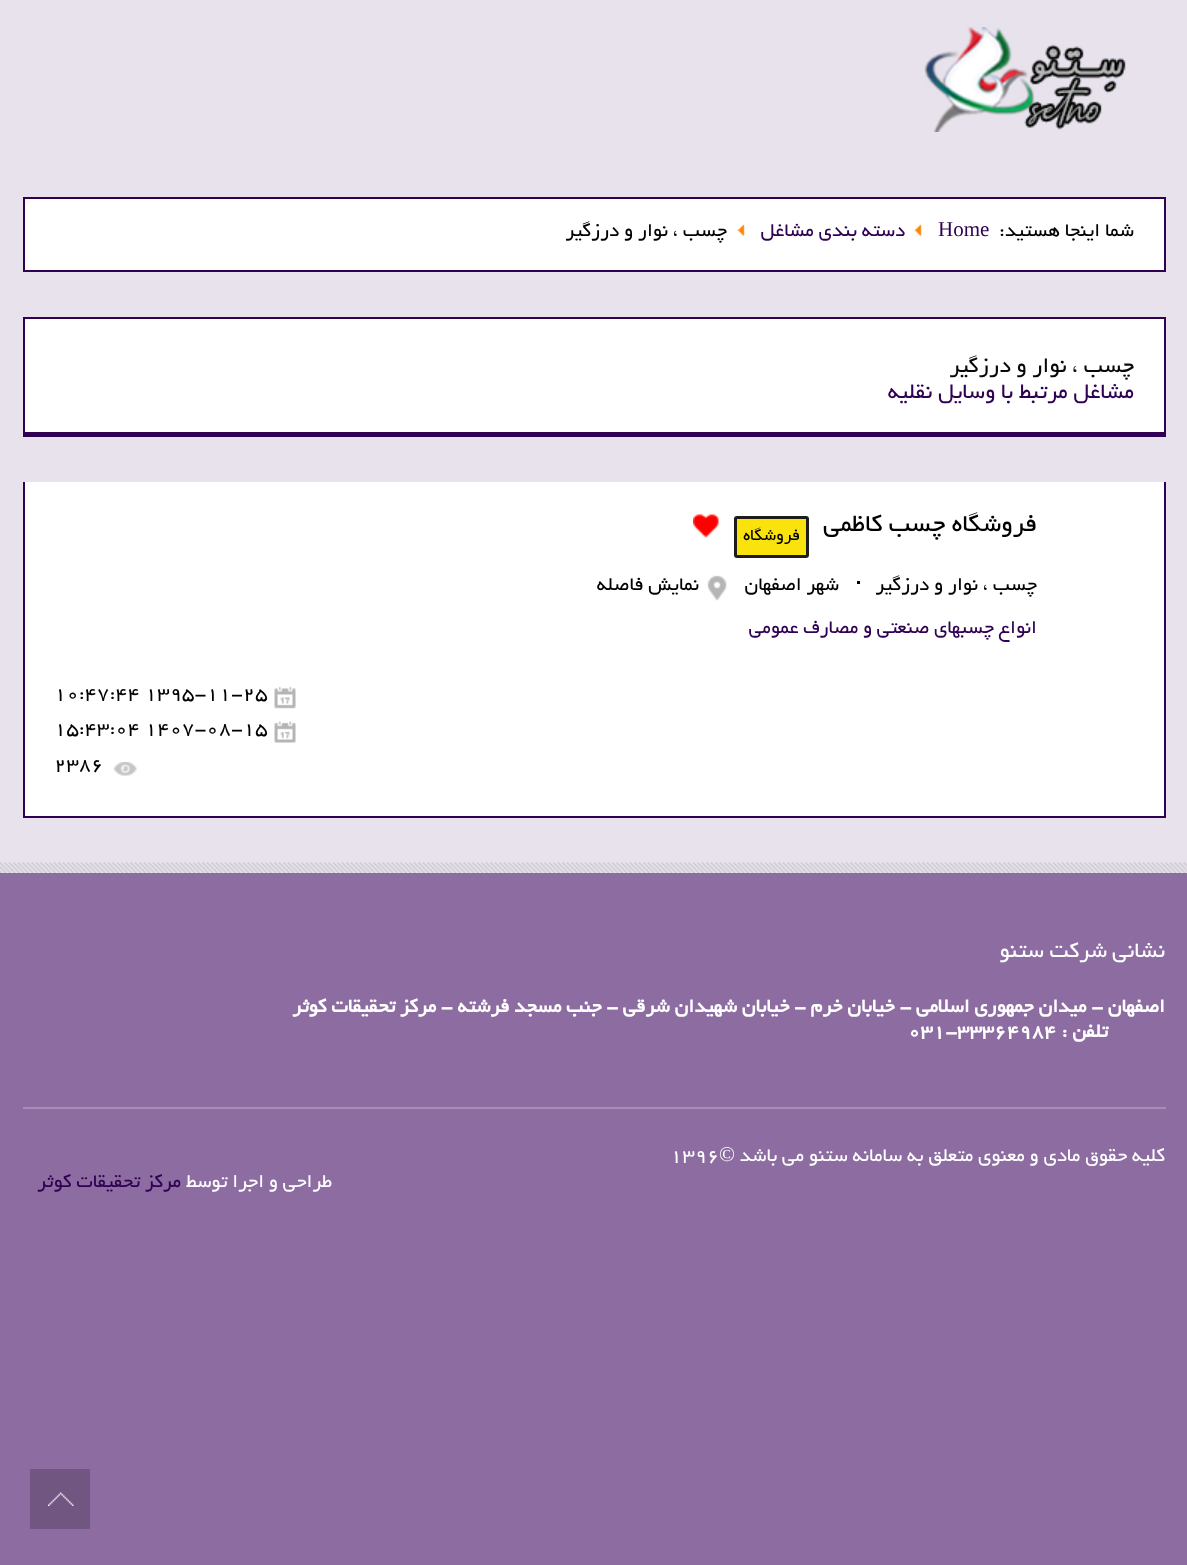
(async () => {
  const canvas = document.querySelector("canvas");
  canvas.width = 1187;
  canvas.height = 1565;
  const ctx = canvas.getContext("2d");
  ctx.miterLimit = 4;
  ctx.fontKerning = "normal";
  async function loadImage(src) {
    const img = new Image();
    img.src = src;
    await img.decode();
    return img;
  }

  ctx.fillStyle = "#8c6ca1";
  ctx.fillRect(0, 0, 1187, 1565);
  ctx.fillStyle = "#e7e2eb";
  ctx.fillRect(0, 0, 1187, 873);
  ctx.drawImage(await loadImage("img/1.png"), 924, 27, 202, 105);
  ctx.fillStyle = "#ffffff";
  ctx.beginPath();
  ctx.rect(24, 198, 1141, 73);
  ctx.fill();
  ctx.strokeStyle = "#300053";
  ctx.lineWidth = 2;
  ctx.stroke();
  ctx.drawImage(await loadImage("img/2.png"), 914, 224, 8, 12);
  ctx.drawImage(await loadImage("img/3.png"), 737, 224, 8, 12);
  ctx.fillRect(25, 319, 1139, 113);
  ctx.strokeRect(24, 318, 1141, 118);
  for (const [x, y, w, h, color] of [
    [24, 432, 1140, 3, "#300053"],
    [25, 482, 1139, 334, "#ffffff"],
    [1164, 482, 2, 336, "#300053"],
    [23, 816, 1143, 2, "#300053"],
    [23, 482, 2, 336, "#300053"],
  ]) {
    ctx.fillStyle = color;
    ctx.fillRect(x, y, w, h);
  }
  ctx.fillStyle = "#fae20c";
  ctx.beginPath();
  ctx.roundRect(735.5, 517.5, 72, 39, 1.5);
  ctx.fill();
  ctx.strokeStyle = "#1c1c1c";
  ctx.lineWidth = 3;
  ctx.stroke();
  ctx.drawImage(await loadImage("img/4.png"), 693, 514, 26, 24);
  ctx.fillStyle = "#000000";
  ctx.fillRect(857, 581, 3, 3);
  ctx.drawImage(await loadImage("img/5.png"), 707, 575, 20, 26);
  ctx.drawImage(await loadImage("img/6.png"), 274, 686, 22, 23);
  ctx.drawImage(await loadImage("img/7.png"), 274, 721, 22, 22);
  ctx.drawImage(await loadImage("img/8.png"), 114, 762, 23, 14);
  ctx.drawImage(await loadImage("img/9.png"), 0, 862, 1187, 11);
  ctx.fillStyle = "#a68db6";
  ctx.fillRect(23, 1107, 1143, 2);
  ctx.fillStyle = "#705681";
  ctx.fillRect(30, 1469, 60, 60);
  ctx.drawImage(await loadImage("img/10.png"), 48, 1492, 26, 14);
  ctx.direction = "rtl";
  ctx.font = "21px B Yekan";
  ctx.fillStyle = "#000000";
  ctx.fillText("شما اینجا هستید:", 1134, 236);
  ctx.direction = "ltr";
  ctx.font = "21px Liberation Serif";
  ctx.fillStyle = "#300053";
  ctx.fillText("Home", 938, 236);
  ctx.direction = "rtl";
  ctx.font = "21px B Yekan";
  ctx.fillText("دسته بندی مشاغل", 905, 236);
  ctx.fillStyle = "#000000";
  ctx.fillText("چسب ، نوار و درزگیر", 727, 236);
  ctx.font = "24px B Yekan";
  ctx.fillStyle = "#080808";
  ctx.fillText("چسب ، نوار و درزگیر", 1134, 372);
  ctx.fillStyle = "#300053";
  ctx.fillText("مشاغل مرتبط با وسایل نقلیه", 1134, 398);
  ctx.font = "27px B Yekan";
  ctx.fillStyle = "#000000";
  ctx.fillText("فروشگاه چسب کاظمی", 1037, 531);
  ctx.font = "18px B Yekan";
  ctx.fillText("فروشگاه", 800, 540);
  ctx.font = "21px B Yekan";
  for (const [text, x, y] of [
    ["چسب ، نوار و درزگیر", 1037, 590],
    ["شهر اصفهان", 839, 590],
    ["نمایش فاصله", 699, 590],
  ]) {
    ctx.fillText(text, x, y);
  }
  ctx.fillStyle = "#300053";
  ctx.fillText("انواع چسبهای صنعتی و مصارف عمومی", 1037, 633);
  ctx.direction = "ltr";
  ctx.fillStyle = "#000000";
  for (const [text, x, y] of [
    ["۱۰:۴۷:۴۴ ۱۳۹۵-۱۱-۲۵", 54, 699],
    ["۱۵:۴۳:۰۴ ۱۴۰۷-۰۸-۱۵", 54, 734],
    ["2386", 54, 770],
  ]) {
    ctx.fillText(text, x, y);
  }
  ctx.direction = "rtl";
  ctx.font = "24px B Yekan";
  ctx.fillStyle = "#ffffff";
  ctx.fillText("نشانی", 1165, 957);
  ctx.fillText("شرکت ستنو", 1107, 957);
  ctx.font = "bold 21px B Yekan";
  ctx.fillText("اصفهان - میدان جمهوری اسلامی - خیابان خرم - خیابان شهیدان شرقی - جنب مسجد فرشته - مرکز تحقیقات کوثر", 1165, 1012);
  ctx.fillText("تلفن :", 1108, 1037);
  ctx.direction = "ltr";
  ctx.fillText("031-33364984", 908, 1037);
  ctx.direction = "rtl";
  ctx.font = "21px B Yekan";
  ctx.fillText("کلیه حقوق مادی و معنوی متعلق به سامانه ستنو می باشد", 1165, 1161);
  ctx.font = "21px Liberation Serif";
  ctx.fillText("©", 735, 1161);
  ctx.direction = "ltr";
  ctx.font = "21px B Yekan";
  ctx.fillText("1396", 670, 1161);
  ctx.direction = "rtl";
  ctx.fillText("طراحی و اجرا توسط", 332, 1187);
  ctx.fillStyle = "#300053";
  ctx.fillText("مرکز تحقیقات کوثر", 181, 1187);
})();
